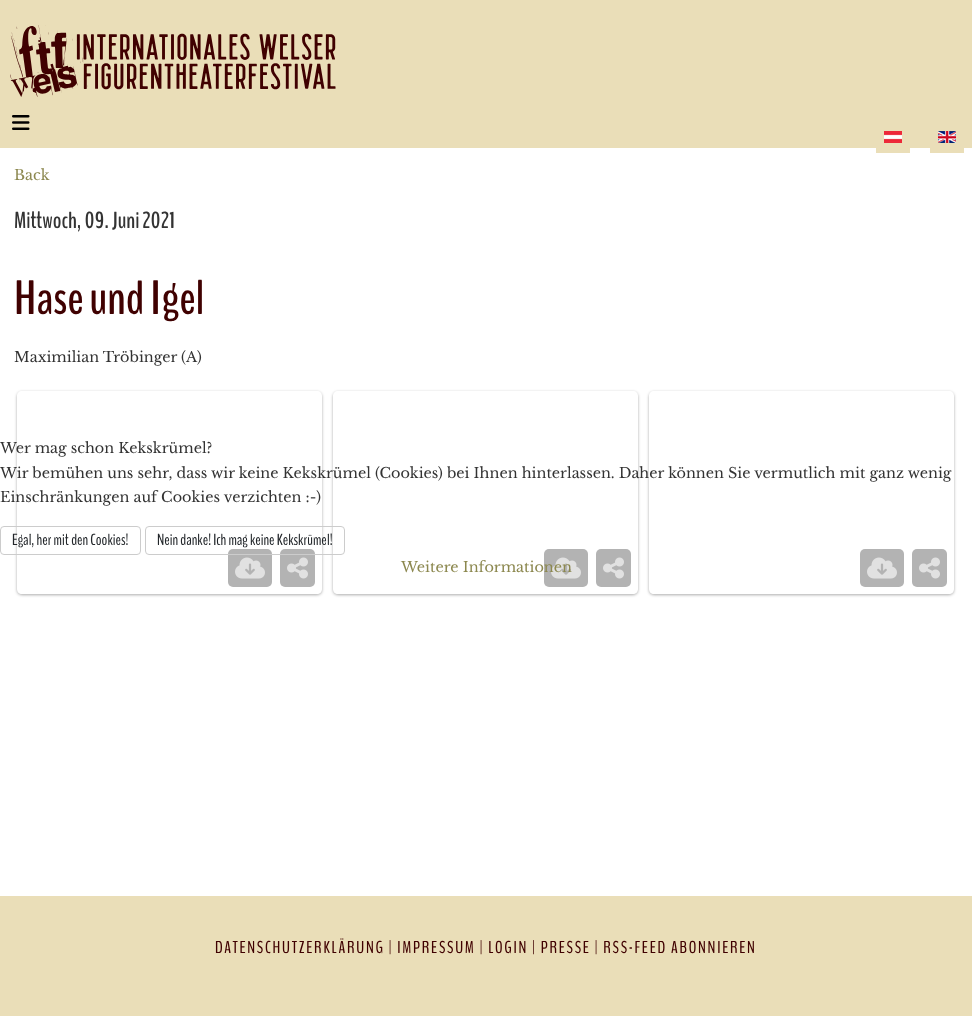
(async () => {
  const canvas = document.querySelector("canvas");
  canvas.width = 972;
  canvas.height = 1016;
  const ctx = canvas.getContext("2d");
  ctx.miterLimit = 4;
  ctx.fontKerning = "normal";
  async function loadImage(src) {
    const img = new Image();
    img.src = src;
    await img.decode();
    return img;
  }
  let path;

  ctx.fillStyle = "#ffffff";
  ctx.fillRect(0, 0, 972, 1016);
  ctx.fillStyle = "#eadeb8";
  ctx.fillRect(0, 0, 972, 148);
  ctx.drawImage(await loadImage("img/1.png"), 10, 25, 326, 72);
  ctx.drawImage(await loadImage("img/2.png"), 12, 115, 18, 15);
  ctx.fillRect(876, 148, 34, 5);
  ctx.drawImage(await loadImage("img/3.png"), 884, 131, 18, 12);
  ctx.fillRect(930, 148, 34, 5);
  ctx.drawImage(await loadImage("img/4.png"), 938, 131, 18, 12);
  ctx.save();
  path = new Path2D("M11 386H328V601H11ZM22 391H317C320 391 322 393 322 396V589C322 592 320 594 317 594H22C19 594 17 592 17 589V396C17 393 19 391 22 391Z");
  ctx.clip(path, "evenodd");
  ctx.fillStyle = "rgba(0, 0, 0, 0.33)";
  ctx.filter = "blur(1.5px)";
  ctx.beginPath();
  ctx.roundRect(17, 392, 305, 203, 5);
  ctx.fill();
  ctx.filter = "none";
  ctx.restore();
  ctx.fillStyle = "#b3b3b3";
  ctx.beginPath();
  ctx.roundRect(228, 549, 44, 38, 5);
  ctx.fill();
  ctx.drawImage(await loadImage("img/5.png"), 235, 557, 30, 22);
  ctx.beginPath();
  ctx.roundRect(280, 549, 35, 38, 5);
  ctx.fill();
  ctx.drawImage(await loadImage("img/6.png"), 287, 557, 21, 22);
  ctx.save();
  path = new Path2D("M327 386H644V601H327ZM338 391H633C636 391 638 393 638 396V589C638 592 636 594 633 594H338C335 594 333 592 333 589V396C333 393 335 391 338 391Z");
  ctx.clip(path, "evenodd");
  ctx.fillStyle = "rgba(0, 0, 0, 0.33)";
  ctx.filter = "blur(1.5px)";
  ctx.beginPath();
  ctx.roundRect(333, 392, 305, 203, 5);
  ctx.fill();
  ctx.filter = "none";
  ctx.restore();
  ctx.beginPath();
  ctx.roundRect(544, 549, 44, 38, 5);
  ctx.fill();
  ctx.drawImage(await loadImage("img/5.png"), 551, 557, 30, 22);
  ctx.beginPath();
  ctx.roundRect(596, 549, 35, 38, 5);
  ctx.fill();
  ctx.drawImage(await loadImage("img/6.png"), 603, 557, 21, 22);
  ctx.save();
  path = new Path2D("M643 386H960V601H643ZM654 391H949C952 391 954 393 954 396V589C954 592 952 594 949 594H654C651 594 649 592 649 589V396C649 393 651 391 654 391Z");
  ctx.clip(path, "evenodd");
  ctx.fillStyle = "rgba(0, 0, 0, 0.33)";
  ctx.filter = "blur(1.5px)";
  ctx.beginPath();
  ctx.roundRect(649, 392, 305, 203, 5);
  ctx.fill();
  ctx.filter = "none";
  ctx.restore();
  ctx.beginPath();
  ctx.roundRect(860, 549, 44, 38, 5);
  ctx.fill();
  ctx.drawImage(await loadImage("img/5.png"), 867, 557, 30, 22);
  ctx.beginPath();
  ctx.roundRect(912, 549, 35, 38, 5);
  ctx.fill();
  ctx.drawImage(await loadImage("img/6.png"), 919, 557, 21, 22);
  ctx.beginPath();
  ctx.roundRect(0.5, 526.5, 140, 28, 3.5);
  ctx.strokeStyle = "#cccccc";
  ctx.stroke();
  ctx.beginPath();
  ctx.roundRect(145.5, 526.5, 199, 28, 3.5);
  ctx.stroke();
  ctx.fillStyle = "#eadeb8";
  ctx.fillRect(0, 896, 972, 120);
  ctx.font = "14.4px Libre Baskerville";
  ctx.fillStyle = "#8c884f";
  ctx.fillText("Back", 14, 180);
  ctx.font = "bold 23.25px BenchNine";
  ctx.fillStyle = "#333333";
  ctx.fillText("Mittwoch, 09. Juni 2021", 14, 228);
  ctx.font = "bold 48px BenchNine";
  ctx.fillStyle = "#400101";
  ctx.fillText("Hase und Igel", 14, 314);
  ctx.font = "14.4px Libre Baskerville";
  ctx.fillStyle = "#333333";
  for (const [text, x, y] of [
    ["Maximilian Tröbinger (A)", 14, 362],
    ["Wer mag schon Kekskrümel?", 0, 453],
    ["Wir bemühen uns sehr, dass wir keine Kekskrümel (Cookies) bei Ihnen hinterlassen. Daher können Sie vermutlich mit ganz wenig", 0, 478],
    ["Einschränkungen auf Cookies verzichten :-)", 0, 502],
  ]) {
    ctx.fillText(text, x, y);
  }
  ctx.font = "16px BenchNine";
  ctx.fillStyle = "#22262a";
  ctx.fillText("Egal, her mit den Cookies!", 12, 545);
  ctx.fillText("Nein danke! Ich mag keine Kekskrümel!", 157, 545);
  ctx.font = "14.4px Libre Baskerville";
  ctx.fillStyle = "#8c884f";
  ctx.fillText("Weitere Informationen", 401, 572);
  ctx.letterSpacing = "1.73px";
  ctx.font = "17.25px BenchNine";
  ctx.fillStyle = "#400101";
  ctx.fillText("DATENSCHUTZERKLÄRUNG | IMPRESSUM | LOGIN | PRESSE | RSS-FEED ABONNIEREN", 215, 953);
})();
